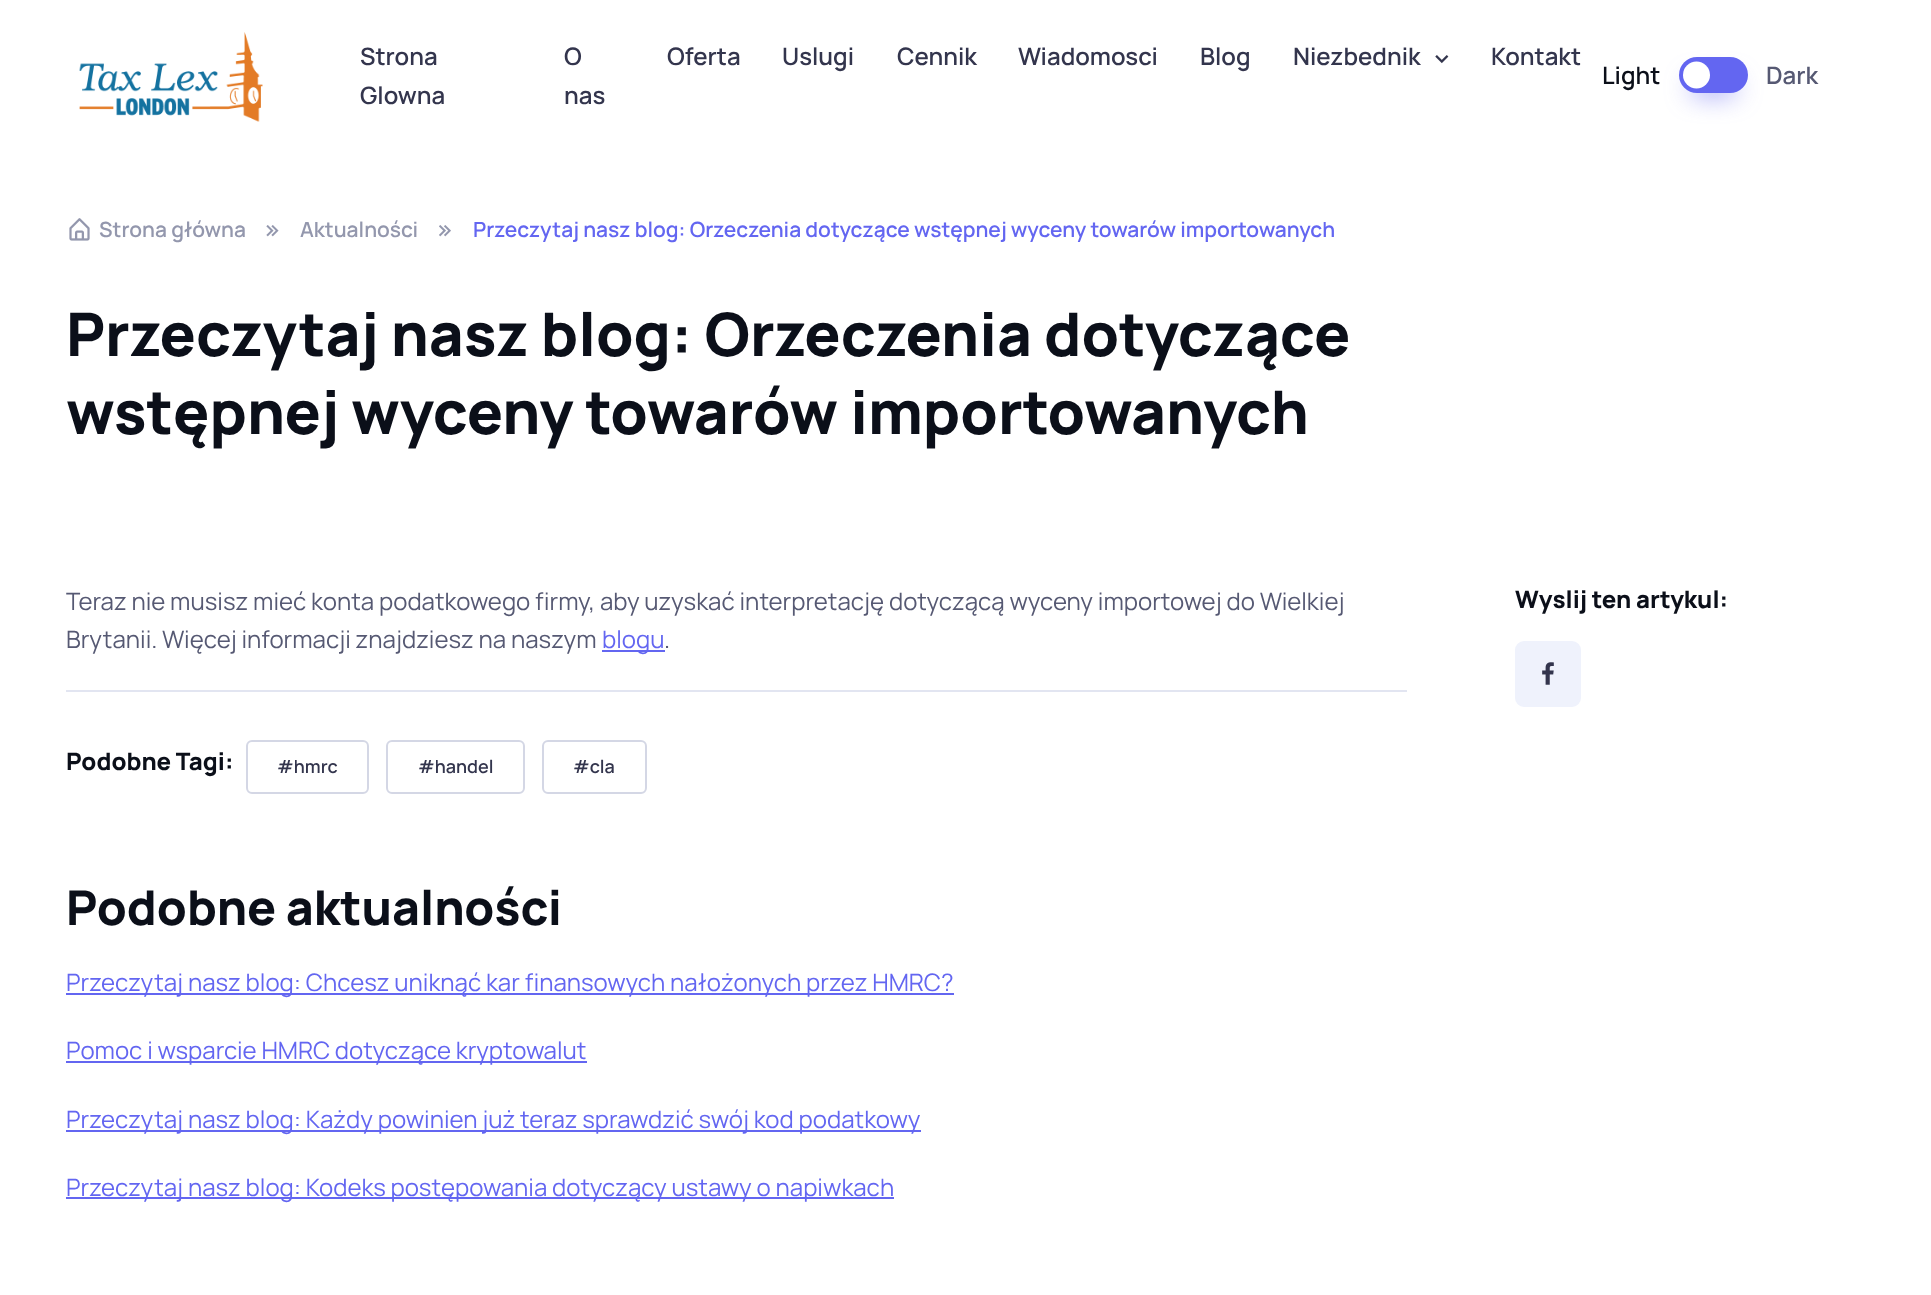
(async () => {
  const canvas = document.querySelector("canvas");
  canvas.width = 1931;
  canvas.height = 1295;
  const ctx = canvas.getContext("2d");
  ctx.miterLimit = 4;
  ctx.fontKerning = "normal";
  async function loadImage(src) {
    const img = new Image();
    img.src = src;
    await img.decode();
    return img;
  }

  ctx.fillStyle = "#ffffff";
  ctx.fillRect(0, 0, 1931, 1295);
  ctx.drawImage(await loadImage("img/1.png"), 79, 32, 184, 90);
  ctx.drawImage(await loadImage("img/2.png"), 1435, 55, 14, 9);
  ctx.fillStyle = "rgba(99, 102, 241, 0.9)";
  ctx.filter = "blur(13.5px)";
  ctx.beginPath();
  ctx.roundRect(1691, 81, 45, 12, 6);
  ctx.fill();
  ctx.filter = "none";
  ctx.fillStyle = "#6366f1";
  ctx.beginPath();
  ctx.roundRect(1679, 57, 69, 36, 18);
  ctx.fill();
  ctx.fillStyle = "#ffffff";
  ctx.beginPath();
  ctx.arc(1696.5, 75, 13.5, 0, Math.PI * 2);
  ctx.fill();
  ctx.drawImage(await loadImage("img/3.png"), 69, 218, 21, 23);
  ctx.drawImage(await loadImage("img/4.png"), 266, 225, 13, 12);
  ctx.drawImage(await loadImage("img/5.png"), 439, 225, 12, 12);
  ctx.fillStyle = "#6366f1";
  ctx.fillRect(602, 650, 63, 2);
  ctx.fillStyle = "#e2e5f1";
  ctx.fillRect(66, 690, 1341, 2);
  ctx.beginPath();
  ctx.roundRect(247, 741, 121, 52, 5);
  ctx.strokeStyle = "#d4d7e5";
  ctx.lineWidth = 2;
  ctx.stroke();
  ctx.beginPath();
  ctx.roundRect(387, 741, 137, 52, 5);
  ctx.stroke();
  ctx.beginPath();
  ctx.roundRect(543, 741, 103, 52, 5);
  ctx.stroke();
  for (const [x, y, w, h, color] of [
    [66, 993, 888, 2, "#6366f1"],
    [66, 1061, 521, 2, "#6366f1"],
    [66, 1130, 855, 2, "#6366f1"],
    [66, 1197, 828, 2, "#6366f1"],
  ]) {
    ctx.fillStyle = color;
    ctx.fillRect(x, y, w, h);
  }
  ctx.fillStyle = "#eff2fc";
  ctx.beginPath();
  ctx.roundRect(1516, 642, 64, 64, 8);
  ctx.fill();
  ctx.strokeStyle = "#eff2fc";
  ctx.stroke();
  ctx.drawImage(await loadImage("img/6.png"), 1542, 662, 12, 23);
  ctx.font = "600 24px Manrope";
  ctx.fillStyle = "#33354d";
  for (const [text, x, y] of [
    ["Strona", 360, 65],
    ["Glowna", 360, 104],
    ["O", 564, 65],
    ["nas", 564, 104],
    ["Oferta", 667, 65],
    ["Uslugi", 782, 65],
    ["Cennik", 897, 65],
    ["Wiadomosci", 1018, 65],
    ["Blog", 1200, 65],
    ["Niezbednik", 1293, 65],
    ["Kontakt", 1491, 65],
  ]) {
    ctx.fillText(text, x, y);
  }
  ctx.fillStyle = "#0b0f19";
  ctx.fillText("Light", 1602, 84);
  ctx.fillStyle = "#565973";
  ctx.fillText("Dark", 1766, 84);
  ctx.font = "600 21px Manrope";
  ctx.fillStyle = "#9397ad";
  ctx.fillText("Strona główna", 99, 237);
  ctx.fillText("Aktualności", 300, 237);
  ctx.fillStyle = "#6366f1";
  ctx.fillText("Przeczytaj nasz blog: Orzeczenia dotyczące wstępnej wyceny towarów importowanych", 473, 237);
  ctx.font = "800 60px Manrope";
  ctx.fillStyle = "#0b0f19";
  ctx.fillText("Przeczytaj nasz blog: Orzeczenia dotyczące", 66, 356);
  ctx.fillText("wstępnej wyceny towarów importowanych", 66, 434);
  ctx.font = "24px Manrope";
  ctx.fillStyle = "#565973";
  ctx.fillText("Teraz nie musisz mieć konta podatkowego firmy, aby uzyskać interpretację dotyczącą wyceny importowej do Wielkiej", 66, 610);
  ctx.fillText("Brytanii. Więcej informacji znajdziesz na naszym", 66, 648);
  ctx.fillStyle = "#6366f1";
  ctx.fillText("blogu", 602, 648);
  ctx.fillStyle = "#565973";
  ctx.fillText(".", 664, 648);
  ctx.font = "800 24px Manrope";
  ctx.fillStyle = "#0b0f19";
  ctx.fillText("Podobne Tagi:", 66, 770);
  ctx.font = "600 18px Manrope";
  ctx.fillStyle = "#33354d";
  for (const [text, x, y] of [
    ["#hmrc", 277, 773],
    ["#handel", 418, 773],
    ["#cla", 573, 773],
  ]) {
    ctx.fillText(text, x, y);
  }
  ctx.font = "800 48px Manrope";
  ctx.fillStyle = "#0b0f19";
  ctx.fillText("Podobne aktualności", 66, 925);
  ctx.font = "24px Manrope";
  ctx.fillStyle = "#6366f1";
  for (const [text, x, y] of [
    ["Przeczytaj nasz blog: Chcesz uniknąć kar finansowych nałożonych przez HMRC?", 66, 991],
    ["Pomoc i wsparcie HMRC dotyczące kryptowalut", 66, 1059],
    ["Przeczytaj nasz blog: Każdy powinien już teraz sprawdzić swój kod podatkowy", 66, 1128],
    ["Przeczytaj nasz blog: Kodeks postępowania dotyczący ustawy o napiwkach", 66, 1196],
  ]) {
    ctx.fillText(text, x, y);
  }
  ctx.font = "800 24px Manrope";
  ctx.fillStyle = "#0b0f19";
  ctx.fillText("Wyslij ten artykul:", 1515, 608);
})();
